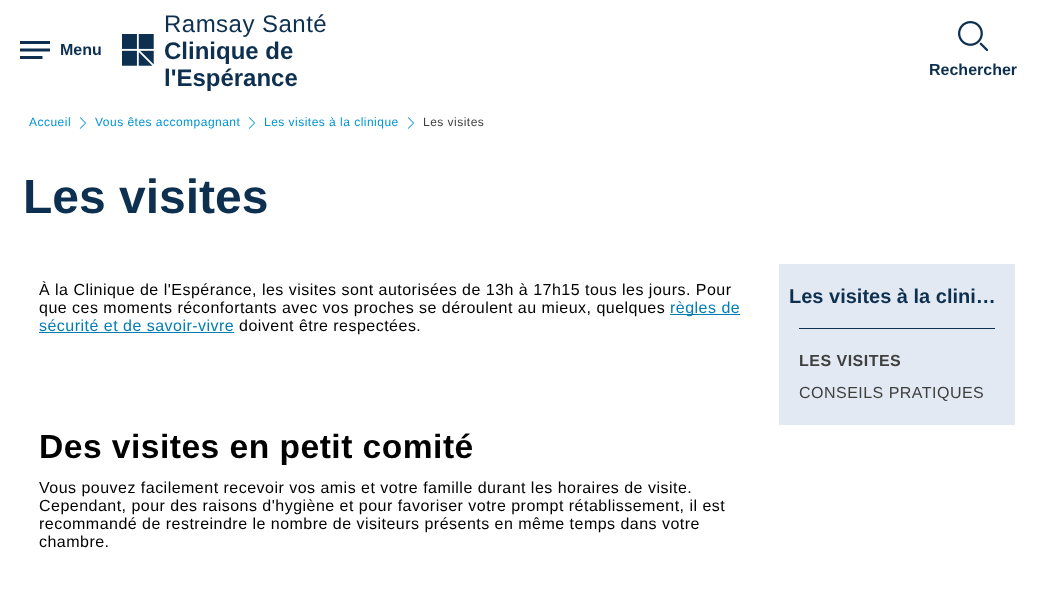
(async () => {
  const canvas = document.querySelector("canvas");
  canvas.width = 1037;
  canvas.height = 603;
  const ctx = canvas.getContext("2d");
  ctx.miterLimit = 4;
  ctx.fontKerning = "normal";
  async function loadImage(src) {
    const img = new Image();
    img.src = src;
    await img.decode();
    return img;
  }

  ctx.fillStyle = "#ffffff";
  ctx.fillRect(0, 0, 1037, 603);
  ctx.drawImage(await loadImage("img/1.png"), 20, 41, 30, 18);
  ctx.drawImage(await loadImage("img/2.png"), 122, 34, 32, 32);
  ctx.drawImage(await loadImage("img/3.png"), 958, 21, 30, 30);
  ctx.drawImage(await loadImage("img/4.png"), 79, 117, 7, 12);
  ctx.drawImage(await loadImage("img/4.png"), 248, 117, 7, 12);
  ctx.drawImage(await loadImage("img/4.png"), 407, 117, 7, 12);
  for (const [x, y, w, h, color] of [
    [670, 314, 70, 1, "#007db3"],
    [39, 332, 195, 1, "#007db3"],
    [779, 264, 236, 161, "#e3e9f2"],
    [799, 328, 196, 1, "#0d3050"],
  ]) {
    ctx.fillStyle = color;
    ctx.fillRect(x, y, w, h);
  }
  ctx.font = "bold 16px Liberation Sans";
  ctx.fillText("Menu", 60, 55);
  ctx.letterSpacing = "0.48px";
  ctx.font = "24px Liberation Sans";
  ctx.fillText("Ramsay Santé", 164, 32);
  ctx.letterSpacing = "0px";
  ctx.font = "bold 24px Liberation Sans";
  ctx.fillText("Clinique de", 164, 59);
  ctx.fillText("l'Espérance", 164, 86);
  ctx.font = "bold 16px Liberation Sans";
  ctx.fillText("Rechercher", 929, 75);
  ctx.letterSpacing = "0.48px";
  ctx.font = "12px Liberation Sans";
  ctx.fillStyle = "#0094d2";
  for (const [text, x, y] of [
    ["Accueil", 29, 126],
    ["Vous êtes accompagnant", 95, 126],
    ["Les visites à la clinique", 264, 126],
  ]) {
    ctx.fillText(text, x, y);
  }
  ctx.fillStyle = "#3f3f3f";
  ctx.fillText("Les visites", 423, 126);
  ctx.letterSpacing = "0px";
  ctx.font = "bold 48px Liberation Sans";
  ctx.fillStyle = "#0d3050";
  ctx.fillText("Les visites", 23, 213);
  ctx.letterSpacing = "0.48px";
  ctx.font = "16px Liberation Sans";
  ctx.fillStyle = "#000000";
  ctx.fillText("À la Clinique de l'Espérance, les visites sont autorisées de 13h à 17h15 tous les jours. Pour", 39, 295);
  ctx.fillText("que ces moments réconfortants avec vos proches se déroulent au mieux, quelques", 39, 313);
  ctx.fillStyle = "#007db3";
  ctx.fillText("règles de", 670, 313);
  ctx.fillText("sécurité et de savoir-vivre", 39, 331);
  ctx.fillStyle = "#000000";
  ctx.fillText("doivent être respectées.", 239, 331);
  ctx.font = "bold 33.6px Liberation Sans";
  ctx.fillText("Des visites en petit comité", 39, 458);
  ctx.font = "16px Liberation Sans";
  for (const [text, x, y] of [
    ["Vous pouvez facilement recevoir vos amis et votre famille durant les horaires de visite.", 39, 493],
    ["Cependant, pour des raisons d'hygiène et pour favoriser votre prompt rétablissement, il est", 39, 511],
    ["recommandé de restreindre le nombre de visiteurs présents en même temps dans votre", 39, 529],
    ["chambre.", 39, 547],
  ]) {
    ctx.fillText(text, x, y);
  }
  ctx.letterSpacing = "0px";
  ctx.font = "bold 20px Liberation Sans";
  ctx.fillStyle = "#0d3050";
  ctx.fillText("Les visites à la clini…", 789, 303);
  ctx.letterSpacing = "0.48px";
  ctx.font = "bold 16px Liberation Sans";
  ctx.fillStyle = "#3f3f3f";
  ctx.fillText("LES VISITES", 799, 366);
  ctx.font = "16px Liberation Sans";
  ctx.fillText("CONSEILS PRATIQUES", 799, 398);
})();
